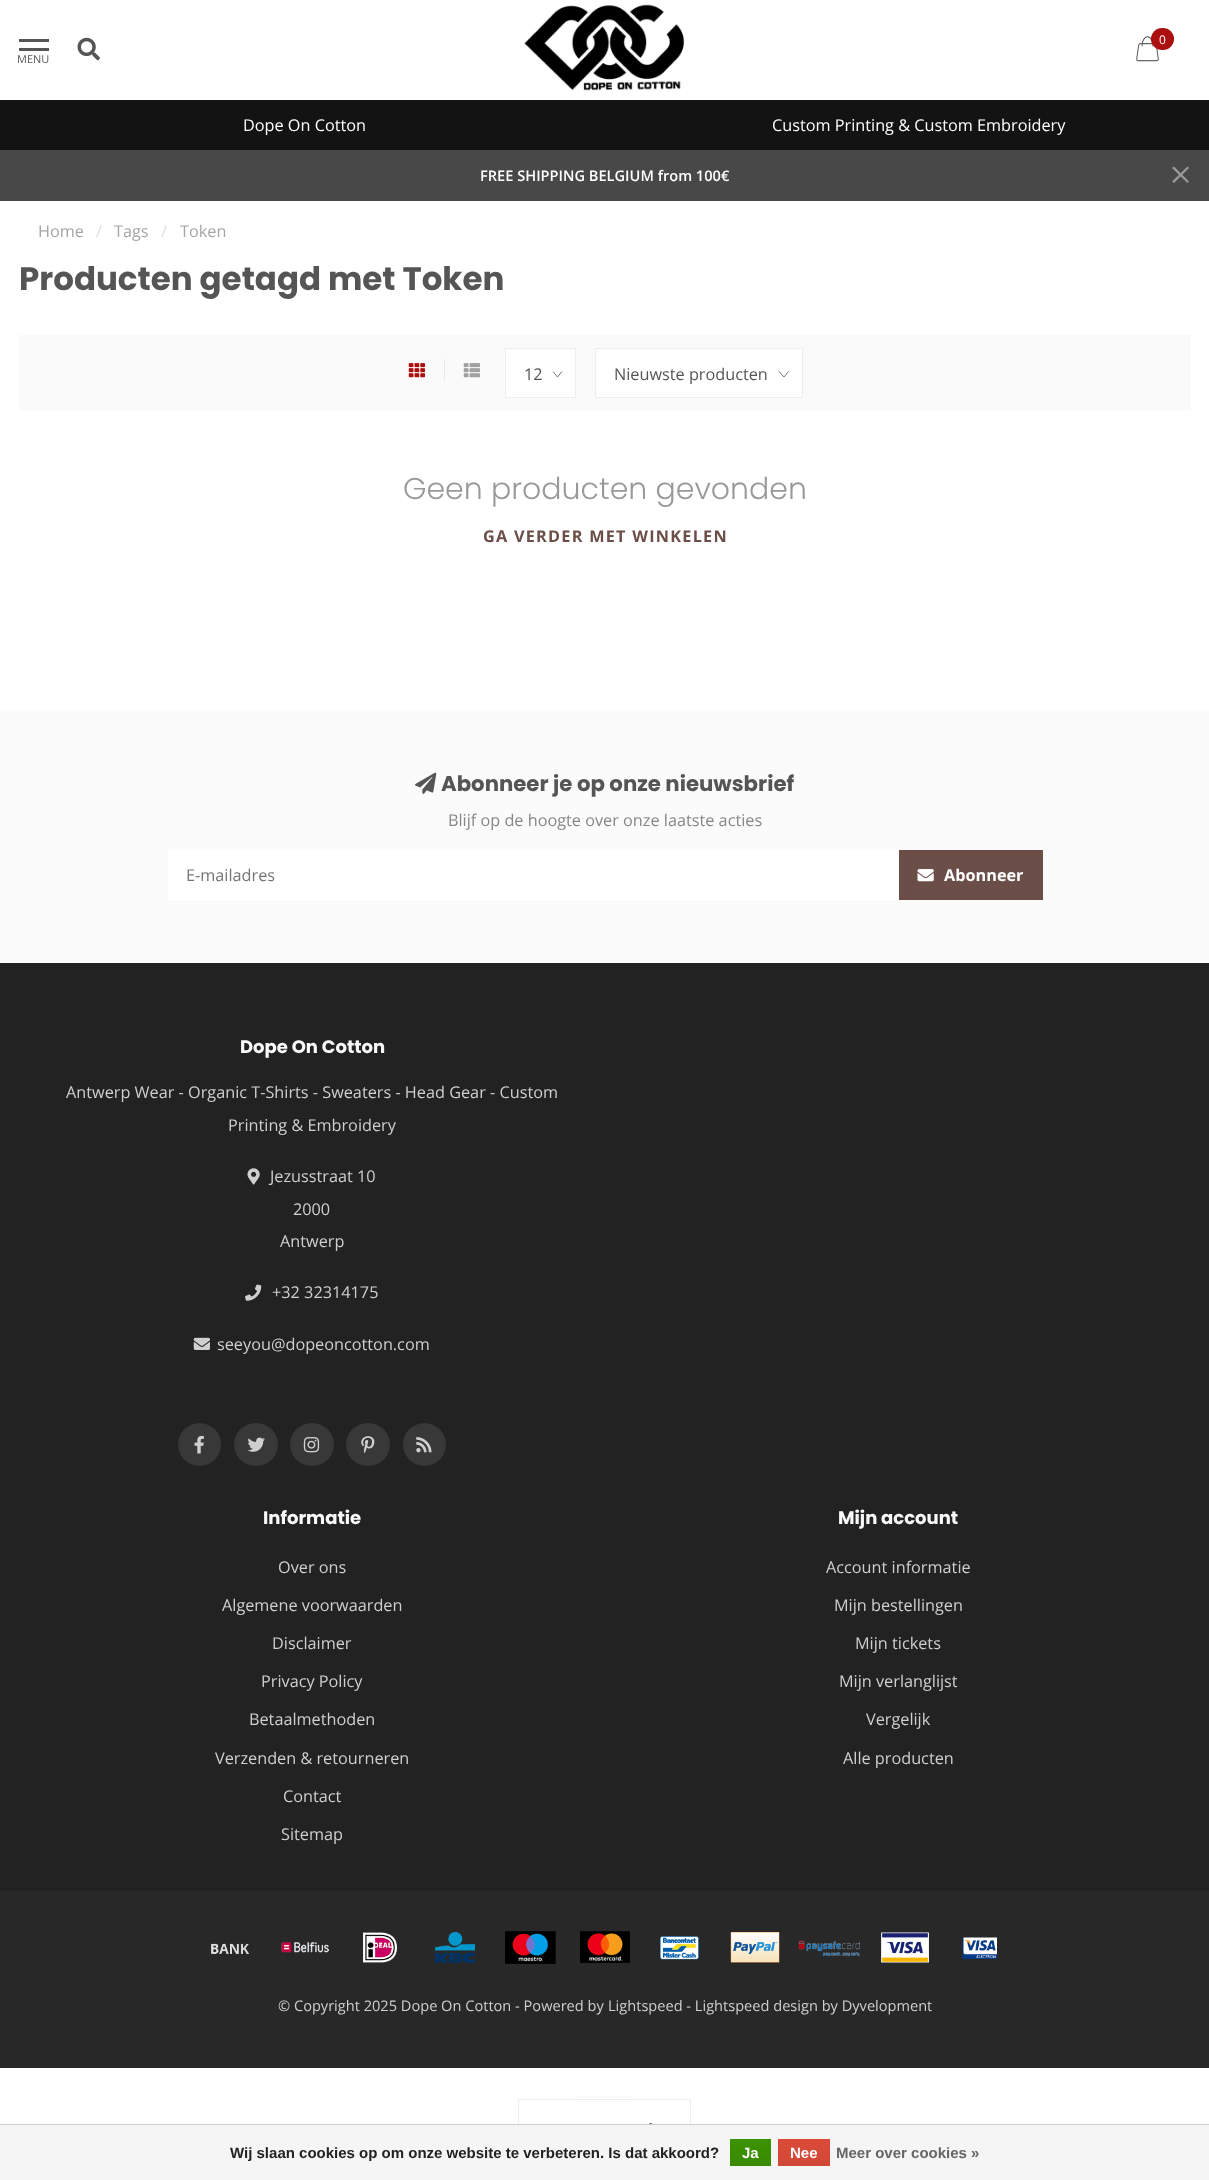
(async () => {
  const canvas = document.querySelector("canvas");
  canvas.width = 1209;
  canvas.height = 2180;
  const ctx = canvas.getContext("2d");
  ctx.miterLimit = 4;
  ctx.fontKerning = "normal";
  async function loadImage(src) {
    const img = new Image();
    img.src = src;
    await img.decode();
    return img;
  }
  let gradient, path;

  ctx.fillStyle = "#ffffff";
  ctx.fillRect(0, 0, 1209, 2180);
  ctx.drawImage(await loadImage("img/1.png"), 524, 4, 161, 87);
  ctx.drawImage(await loadImage("img/2.png"), 1136, 36, 23, 26);
  ctx.fillStyle = "#ab0f0f";
  ctx.beginPath();
  ctx.roundRect(1151, 28, 23, 22, 11);
  ctx.fill();
  ctx.fillStyle = "#555555";
  ctx.fillRect(19, 39, 30, 3);
  ctx.fillRect(19, 48, 30, 3);
  ctx.drawImage(await loadImage("img/3.png"), 77, 37, 23, 24);
  ctx.fillStyle = "#131313";
  ctx.fillRect(0, 100, 1209, 50);
  ctx.fillStyle = "#484848";
  ctx.fillRect(0, 150, 1209, 51);
  ctx.fillStyle = "#999999";
  path = new Path2D("M1174 166.5L1189 181.5L1187.5 183L1172 168Z");
  ctx.fill(path);
  path = new Path2D("M1172 181.5L1187.5 166.5L1189 168L1174 183Z");
  ctx.fill(path);
  ctx.fillStyle = "#fafafa";
  ctx.fillRect(19, 335, 1172, 75);
  ctx.fillStyle = "#eaeaea";
  ctx.fillRect(444, 359, 1, 22);
  ctx.drawImage(await loadImage("img/4.png"), 408, 363, 17, 15);
  ctx.drawImage(await loadImage("img/5.png"), 463, 363, 17, 15);
  ctx.fillStyle = "#ffffff";
  ctx.fillRect(506, 349, 69, 48);
  path = new Path2D("M562 371.5L557.5 377L553 371.5");
  ctx.strokeStyle = "#666666";
  ctx.lineWidth = 0.9;
  ctx.stroke(path);
  ctx.strokeStyle = "#eeeeee";
  ctx.lineWidth = 1;
  ctx.strokeRect(505.5, 348.5, 70, 49);
  ctx.fillRect(596, 349, 206, 48);
  path = new Path2D("M788.5 371.5L784 377L779 371.5");
  ctx.strokeStyle = "#666666";
  ctx.lineWidth = 0.9;
  ctx.stroke(path);
  ctx.strokeStyle = "#eeeeee";
  ctx.lineWidth = 1;
  ctx.strokeRect(595.5, 348.5, 207, 49);
  ctx.fillStyle = "#fbfbfb";
  ctx.fillRect(0, 710, 1209, 253);
  ctx.drawImage(await loadImage("img/6.png"), 415, 772, 22, 22);
  ctx.fillStyle = "#ffffff";
  ctx.fillRect(168, 850, 731, 50);
  ctx.fillStyle = "#6b4e48";
  ctx.fillRect(899, 850, 144, 50);
  ctx.drawImage(await loadImage("img/7.png"), 917, 869, 17, 13);
  ctx.fillStyle = "#222222";
  ctx.fillRect(0, 963, 1209, 928);
  ctx.drawImage(await loadImage("img/8.png"), 247, 1168, 13, 17);
  ctx.drawImage(await loadImage("img/9.png"), 245, 1284, 17, 17);
  ctx.drawImage(await loadImage("img/10.png"), 193, 1337, 17, 13);
  ctx.fillStyle = "#383838";
  ctx.beginPath();
  ctx.arc(199.5, 1444.5, 21.5, 0, Math.PI * 2);
  ctx.fill();
  ctx.drawImage(await loadImage("img/11.png"), 194, 1435, 10, 19);
  ctx.beginPath();
  ctx.roundRect(234, 1423, 44, 43, 21.5);
  ctx.fill();
  ctx.drawImage(await loadImage("img/12.png"), 247, 1437, 18, 15);
  ctx.beginPath();
  ctx.roundRect(290, 1423, 44, 43, 21.5);
  ctx.fill();
  ctx.drawImage(await loadImage("img/13.png"), 303, 1437, 17, 16);
  ctx.beginPath();
  ctx.roundRect(346, 1423, 44, 43, 21.5);
  ctx.fill();
  ctx.drawImage(await loadImage("img/14.png"), 361, 1436, 14, 18);
  ctx.beginPath();
  ctx.arc(424.5, 1444.5, 21.5, 0, Math.PI * 2);
  ctx.fill();
  ctx.drawImage(await loadImage("img/15.png"), 416, 1437, 16, 16);
  ctx.fillStyle = "#282828";
  ctx.fillRect(0, 1891, 1209, 177);
  ctx.drawImage(await loadImage("img/16.png"), 211, 1943, 39, 11);
  ctx.drawImage(await loadImage("img/17.png"), 281, 1942, 48, 11);
  ctx.drawImage(await loadImage("img/18.png"), 363, 1932, 34, 31);
  ctx.drawImage(await loadImage("img/19.png"), 435, 1932, 40, 31);
  ctx.drawImage(await loadImage("img/20.png"), 505, 1931, 51, 33);
  ctx.drawImage(await loadImage("img/21.png"), 580, 1931, 50, 32);
  ctx.drawImage(await loadImage("img/22.png"), 660, 1936, 39, 24);
  ctx.drawImage(await loadImage("img/23.png"), 730, 1932, 50, 31);
  ctx.drawImage(await loadImage("img/24.png"), 798, 1940, 62, 17);
  ctx.drawImage(await loadImage("img/25.png"), 881, 1932, 48, 31);
  ctx.drawImage(await loadImage("img/26.png"), 962, 1937, 35, 22);
  ctx.save();
  ctx.beginPath();
  ctx.rect(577, 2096, 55, 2);
  ctx.clip();
  ctx.fillStyle = "#000000";
  ctx.filter = "blur(25px)";
  ctx.beginPath();
  ctx.rect(545, 2139, 119, 7);
  ctx.fill();
  ctx.filter = "none";
  ctx.restore();
  ctx.strokeRect(518.5, 2099.5, 172, 61);
  ctx.fillStyle = "#f5f5f5";
  ctx.fillRect(0, 2125, 1209, 55);
  ctx.fillStyle = "#cccccc";
  ctx.fillRect(0, 2124, 1209, 1);
  gradient = ctx.createLinearGradient(751, 2139, 751, 2166);
  gradient.addColorStop(0, "#3c9300");
  gradient.addColorStop(1, "#398a00");
  ctx.fillStyle = gradient;
  ctx.fillRect(730, 2139, 41, 27);
  gradient = ctx.createLinearGradient(804, 2139, 804, 2166);
  gradient.addColorStop(0, "#dc4a38");
  gradient.addColorStop(1, "#d14836");
  ctx.fillStyle = gradient;
  ctx.fillRect(778, 2139, 52, 27);
  ctx.drawImage(await loadImage("img/27.png"), 649, 2123, 3, 1);
  ctx.font = "12px Open Sans";
  ctx.fillStyle = "#ffffff";
  ctx.fillText("0", 1159, 44);
  ctx.font = "11px Open Sans";
  ctx.fillStyle = "#555555";
  ctx.fillText("MENU", 17, 63);
  ctx.font = "16.25px Open Sans";
  ctx.fillStyle = "#ffffff";
  ctx.fillText("Dope On Cotton", 243, 131);
  ctx.fillText("Custom Printing & Custom Embroidery", 772, 131);
  ctx.font = "600 14.6px Open Sans";
  ctx.fillText("FREE SHIPPING BELGIUM from 100€", 480, 181);
  ctx.font = "16.25px Open Sans";
  ctx.fillStyle = "#a5a5a5";
  ctx.fillText("Home", 38, 237);
  ctx.fillStyle = "#dddddd";
  ctx.fillText("/", 96, 237);
  ctx.fillStyle = "#a5a5a5";
  ctx.fillText("Tags", 114, 237);
  ctx.fillStyle = "#dddddd";
  ctx.fillText("/", 161, 237);
  ctx.fillStyle = "#a5a5a5";
  ctx.fillText("Token", 180, 237);
  ctx.font = "bold 32.5px Poppins";
  ctx.fillStyle = "#555555";
  ctx.fillText("Producten getagd met Token", 19, 290);
  ctx.font = "16.25px Open Sans";
  ctx.fillText("12", 524, 380);
  ctx.fillText("Nieuwste producten", 614, 380);
  ctx.font = "300 30px Poppins";
  ctx.fillStyle = "#999999";
  ctx.fillText("Geen producten gevonden", 403, 499);
  ctx.letterSpacing = "1.25px";
  ctx.font = "bold 16.25px Open Sans";
  ctx.fillStyle = "#6b4e48";
  ctx.fillText("GA VERDER MET WINKELEN", 483, 542);
  ctx.letterSpacing = "0px";
  ctx.font = "bold 21.25px Poppins";
  ctx.fillStyle = "#555555";
  ctx.fillText("Abonneer je op onze nieuwsbrief", 441, 791);
  ctx.font = "16.25px Open Sans";
  ctx.fillStyle = "#878787";
  ctx.fillText("Blijf op de hoogte over onze laatste acties", 448, 826);
  ctx.fillStyle = "#757575";
  ctx.fillText("E-mailadres", 186, 881);
  ctx.font = "bold 16.25px Open Sans";
  ctx.fillStyle = "#ffffff";
  ctx.fillText("Abonneer", 944, 881);
  ctx.font = "bold 18px Poppins";
  ctx.fillStyle = "#f9f9f9";
  ctx.fillText("Dope On Cotton", 240, 1053);
  ctx.font = "16.25px Open Sans";
  ctx.fillStyle = "#cfcfcf";
  for (const [text, x, y] of [
    ["Antwerp Wear - Organic T-Shirts - Sweaters - Head Gear - Custom", 66, 1098],
    ["Printing & Embroidery", 228, 1131],
    ["Jezusstraat 10", 270, 1182],
    ["2000", 293, 1215],
    ["Antwerp", 280, 1247],
    ["+32 32314175", 272, 1298],
    ["seeyou@dopeoncotton.com", 217, 1350],
  ]) {
    ctx.fillText(text, x, y);
  }
  ctx.font = "bold 18px Poppins";
  ctx.fillStyle = "#f9f9f9";
  ctx.fillText("Informatie", 263, 1524);
  ctx.font = "16.25px Open Sans";
  ctx.fillStyle = "#cfcfcf";
  for (const [text, x, y] of [
    ["Over ons", 278, 1573],
    ["Algemene voorwaarden", 222, 1611],
    ["Disclaimer", 272, 1649],
    ["Privacy Policy", 261, 1687],
    ["Betaalmethoden", 249, 1725],
    ["Verzenden & retourneren", 215, 1764],
    ["Contact", 283, 1802],
    ["Sitemap", 281, 1840],
  ]) {
    ctx.fillText(text, x, y);
  }
  ctx.font = "bold 18px Poppins";
  ctx.fillStyle = "#f9f9f9";
  ctx.fillText("Mijn account", 838, 1524);
  ctx.font = "16.25px Open Sans";
  ctx.fillStyle = "#cfcfcf";
  for (const [text, x, y] of [
    ["Account informatie", 826, 1573],
    ["Mijn bestellingen", 834, 1611],
    ["Mijn tickets", 855, 1649],
    ["Mijn verlanglijst", 839, 1687],
    ["Vergelijk", 866, 1725],
    ["Alle producten", 843, 1764],
  ]) {
    ctx.fillText(text, x, y);
  }
  ctx.font = "14.6px Open Sans";
  ctx.fillText("© Copyright 2025 Dope On Cotton - Powered by", 278, 2011);
  ctx.fillText("Lightspeed - Lightspeed design by Dyvelopment", 608, 2011);
  ctx.font = "bold 15px Liberation Sans";
  ctx.fillStyle = "#222222";
  ctx.fillText("Wij slaan cookies op om onze website te verbeteren. Is dat akkoord?", 230, 2158);
  ctx.fillStyle = "#ffffff";
  ctx.fillText("Ja", 742, 2158);
  ctx.fillText("Nee", 790, 2158);
  ctx.fillStyle = "#666666";
  ctx.fillText("Meer over cookies »", 836, 2158);
})();
